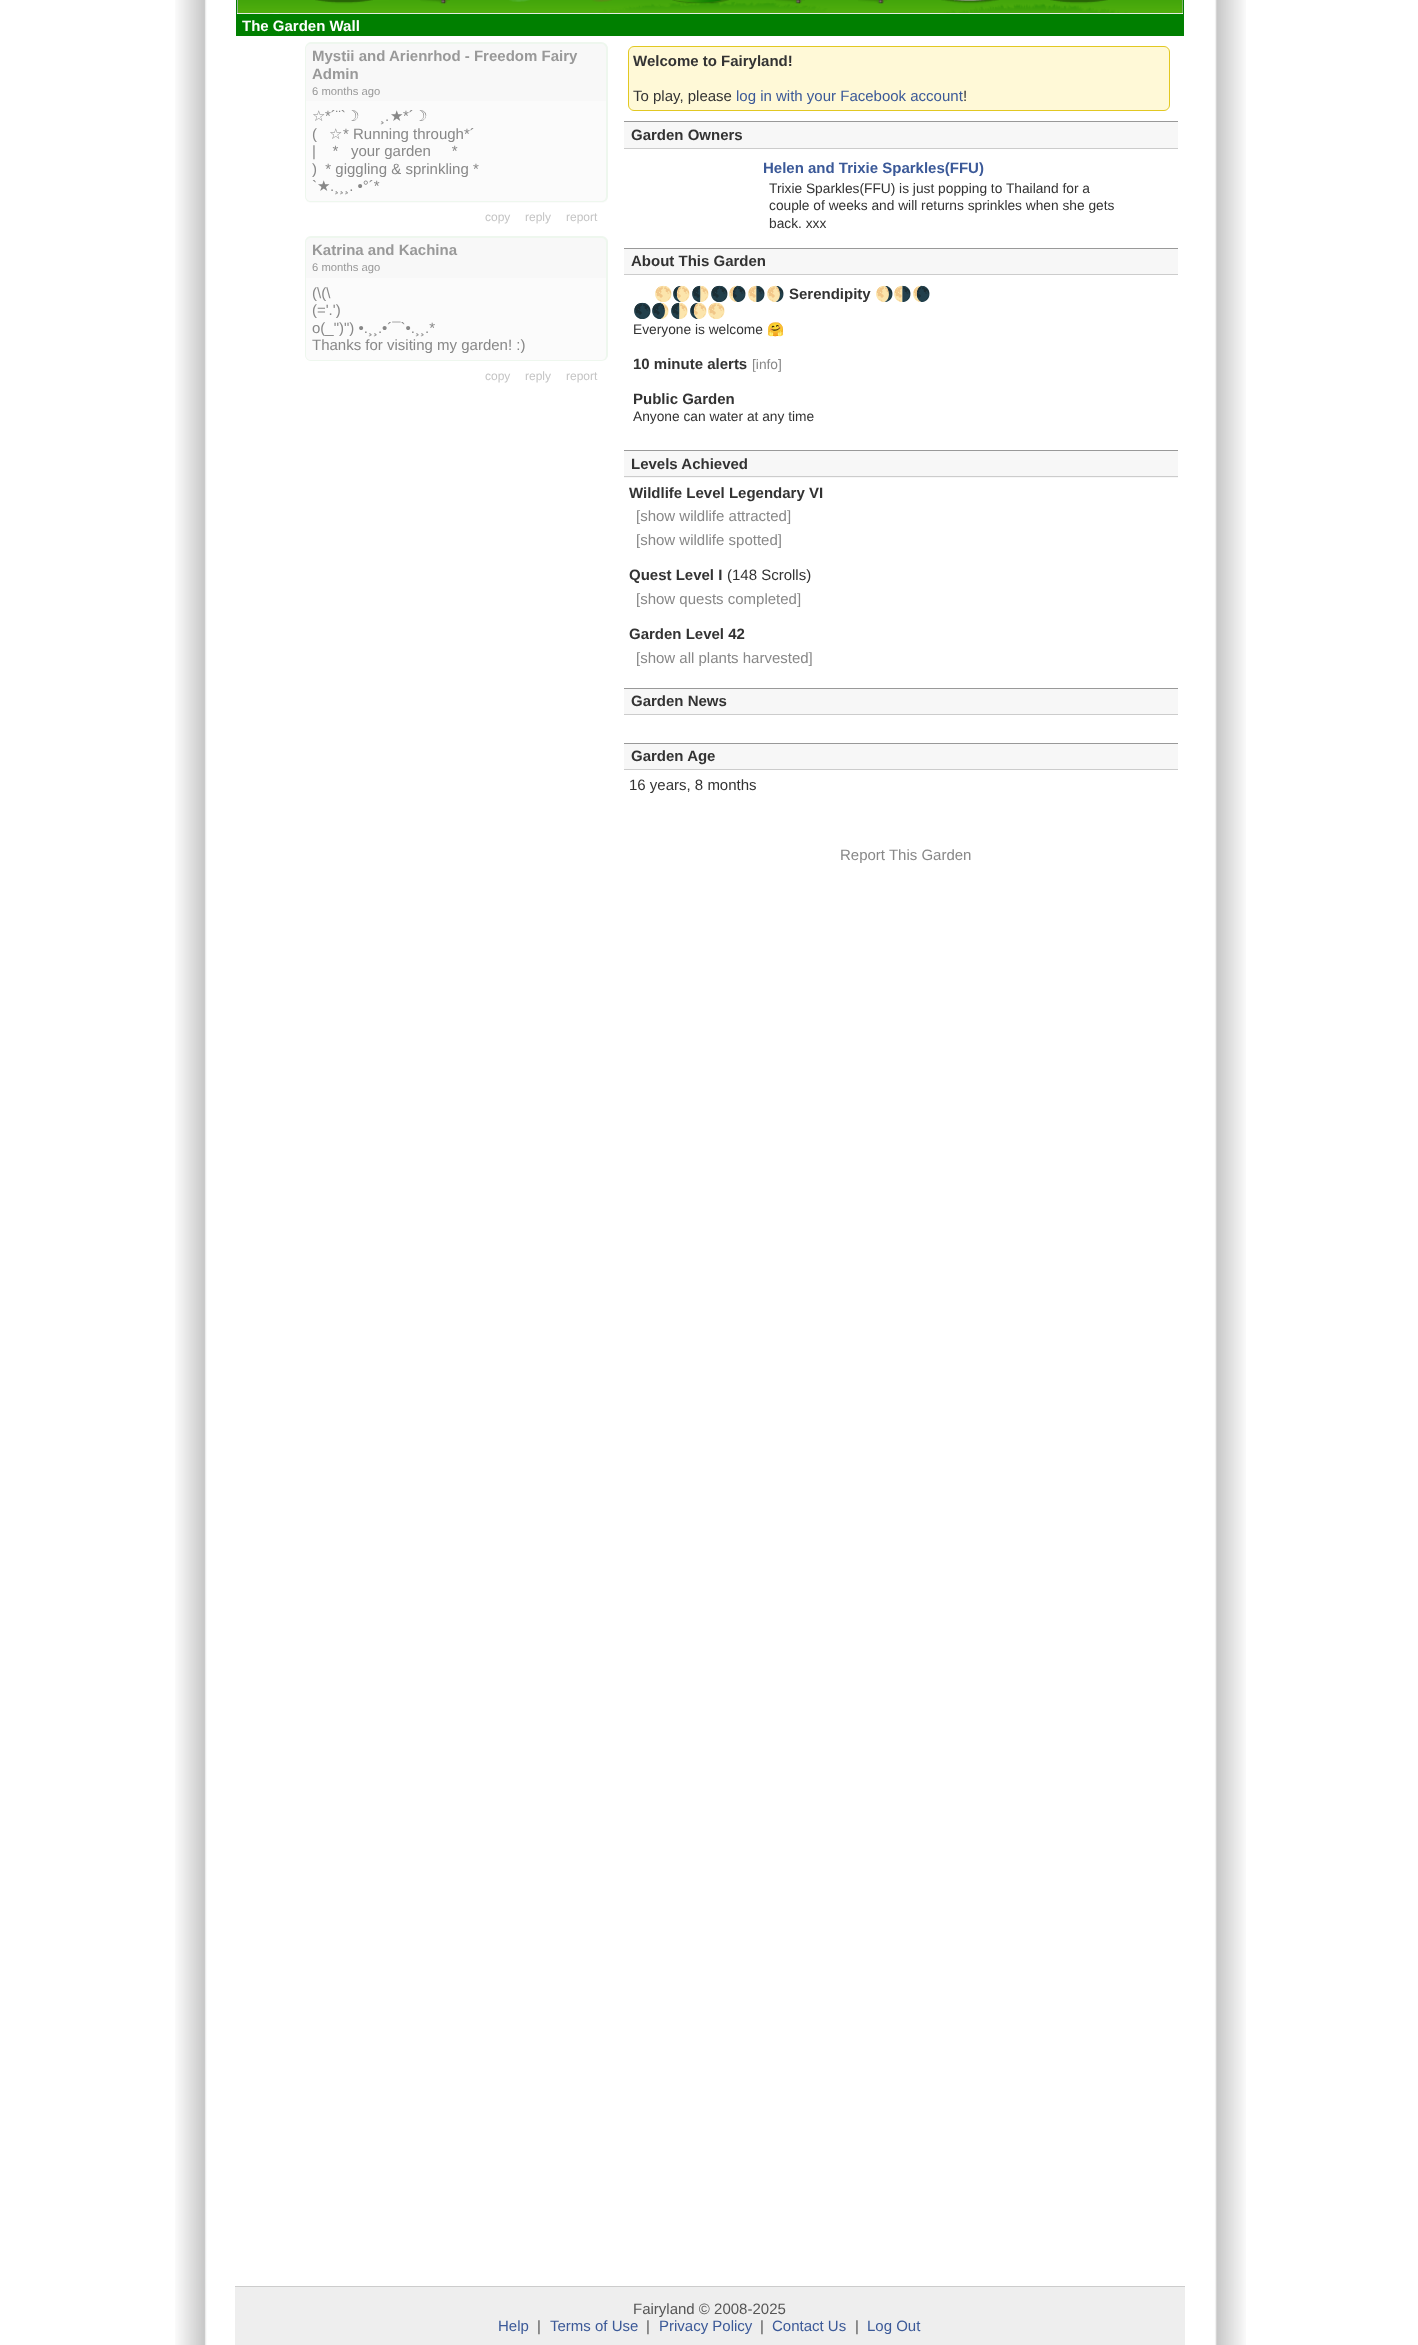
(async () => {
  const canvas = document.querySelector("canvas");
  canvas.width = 1418;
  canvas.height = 2345;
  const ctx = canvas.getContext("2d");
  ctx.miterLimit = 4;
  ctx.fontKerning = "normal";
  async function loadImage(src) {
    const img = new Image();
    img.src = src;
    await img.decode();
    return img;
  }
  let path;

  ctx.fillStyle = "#ffffff";
  ctx.fillRect(0, 0, 1418, 2345);
  ctx.drawImage(await loadImage("img/1.png"), 175, 0, 1071, 2345);
  ctx.strokeStyle = "#007f00";
  ctx.strokeRect(236.5, -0.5, 947, 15);
  ctx.fillStyle = "#eff6ff";
  ctx.fillRect(237, 0, 946, 13);
  ctx.drawImage(await loadImage("img/2.png"), 237, 0, 946, 14);
  ctx.drawImage(await loadImage("img/3.png"), 237, 0, 946, 14);
  ctx.drawImage(await loadImage("img/5.png"), 318, 0, 53, 2);
  ctx.drawImage(await loadImage("img/4.png"), 315, 0, 58, 4);
  ctx.drawImage(await loadImage("img/6.png"), 420, 0, 30, 4);
  ctx.drawImage(await loadImage("img/7.png"), 509, 0, 21, 2);
  ctx.drawImage(await loadImage("img/8.png"), 592, 0, 20, 2);
  ctx.drawImage(await loadImage("img/9.png"), 672, 0, 57, 4);
  ctx.drawImage(await loadImage("img/10.png"), 775, 0, 30, 4);
  ctx.drawImage(await loadImage("img/11.png"), 858, 0, 29, 4);
  ctx.drawImage(await loadImage("img/12.png"), 941, 0, 58, 4);
  ctx.drawImage(await loadImage("img/14.png"), 1053, 0, 53, 2);
  ctx.drawImage(await loadImage("img/13.png"), 1050, 0, 58, 4);
  ctx.fillStyle = "#f8f8f8";
  ctx.beginPath();
  ctx.roundRect(305, 43, 303, 58, [6, 6, 0, 0]);
  ctx.fill();
  ctx.fillStyle = "#eef7ee";
  path = new Path2D("M311 42H601C605 42 608 45 608 49V101H305V49C305 45 308 42 311 42ZM311 44H601C604 44 606 46 606 49V101H306V49C306 46 308 44 311 44Z");
  ctx.fill(path, "evenodd");
  ctx.fillStyle = "#fbfbfb";
  ctx.beginPath();
  ctx.roundRect(305, 101, 303, 102, [0, 0, 6, 6]);
  ctx.fill();
  ctx.fillStyle = "#eef7ee";
  path = new Path2D("M305 101H608V196C608 200 605 202 601 202H311C308 202 305 200 305 196ZM306 101H606V196C606 199 604 201 601 201H311C308 201 306 199 306 196Z");
  ctx.fill(path, "evenodd");
  ctx.fillStyle = "#f8f8f8";
  ctx.beginPath();
  ctx.roundRect(305, 236, 303, 42, [6, 6, 0, 0]);
  ctx.fill();
  ctx.fillStyle = "#eef7ee";
  path = new Path2D("M311 236H601C605 236 608 239 608 242V278H305V242C305 239 308 236 311 236ZM311 238H601C604 238 606 240 606 242V278H306V242C306 240 308 238 311 238Z");
  ctx.fill(path, "evenodd");
  ctx.fillStyle = "#fbfbfb";
  ctx.beginPath();
  ctx.roundRect(305, 278, 303, 83, [0, 0, 6, 6]);
  ctx.fill();
  ctx.fillStyle = "#eef7ee";
  path = new Path2D("M305 278H608V355C608 358 605 361 601 361H311C308 361 305 358 305 355ZM306 278H606V355C606 358 604 360 601 360H311C308 360 306 358 306 355Z");
  ctx.fill(path, "evenodd");
  ctx.fillStyle = "#007f00";
  ctx.fillRect(236, 15, 948, 21);
  ctx.fillStyle = "#fff9d7";
  ctx.beginPath();
  ctx.roundRect(628.5, 46.5, 541, 64, 5.5);
  ctx.fill();
  ctx.strokeStyle = "#e2c822";
  ctx.stroke();
  for (const [x, y, w, h, color] of [
    [624, 122, 554, 26, "#f7f7f7"],
    [624, 121, 554, 1, "#999999"],
    [624, 148, 554, 1, "#cccccc"],
    [624, 249, 554, 25, "#f7f7f7"],
    [624, 248, 554, 1, "#999999"],
    [624, 274, 554, 1, "#cccccc"],
    [624, 451, 554, 27, "#f7f7f7"],
    [624, 450, 554, 1, "#999999"],
    [624, 476, 554, 1, "#cccccc"],
    [624, 689, 554, 25, "#f7f7f7"],
    [624, 688, 554, 1, "#999999"],
    [624, 714, 554, 1, "#cccccc"],
    [624, 744, 554, 25, "#f7f7f7"],
    [624, 743, 554, 1, "#999999"],
    [624, 769, 554, 1, "#cccccc"],
    [235, 2287, 950, 58, "#eeeeee"],
    [235, 2286, 950, 1, "#cccccc"],
  ]) {
    ctx.fillStyle = color;
    ctx.fillRect(x, y, w, h);
  }
  ctx.font = "bold 15px Liberation Sans";
  ctx.fillStyle = "#ffffff";
  ctx.fillText("The Garden Wall", 242, 31);
  ctx.fillStyle = "#999999";
  ctx.fillText("Mystii and Arienrhod - Freedom Fairy", 312, 61);
  ctx.fillText("Admin", 312, 79);
  ctx.font = "11.25px Liberation Sans";
  ctx.fillText("6 months ago", 312, 95);
  ctx.font = "15px DejaVu Sans";
  ctx.fillStyle = "#888888";
  ctx.fillText("☆", 312, 121);
  ctx.font = "15px Liberation Sans";
  ctx.fillText("*´¨`", 325, 121);
  ctx.font = "15px DejaVu Sans";
  ctx.fillText("☽", 346, 121);
  ctx.fillText("★", 390, 121);
  ctx.font = "15px Liberation Sans";
  ctx.fillText("*´", 403, 121);
  ctx.font = "15px DejaVu Sans";
  ctx.fillText("☽", 414, 121);
  ctx.font = "15px Liberation Sans";
  ctx.fillText("¸.", 380, 121);
  ctx.fillText("(", 312, 139);
  ctx.font = "15px DejaVu Sans";
  ctx.fillText("☆", 329, 139);
  ctx.font = "15px Liberation Sans";
  for (const [text, x, y] of [
    ["* Running through*´", 343, 139],
    ["|    *   your garden     *", 312, 156],
    [")  * giggling & sprinkling *", 312, 174],
    ["`", 312, 191],
  ]) {
    ctx.fillText(text, x, y);
  }
  ctx.font = "15px DejaVu Sans";
  ctx.fillText("★", 317, 191);
  ctx.font = "15px Liberation Sans";
  ctx.fillText(".¸¸¸. •°´*", 330, 191);
  ctx.font = "12px Liberation Sans";
  ctx.fillStyle = "#c4c4c4";
  for (const [text, x, y] of [
    ["copy", 485, 221],
    ["reply", 525, 221],
    ["report", 566, 221],
  ]) {
    ctx.fillText(text, x, y);
  }
  ctx.font = "bold 15px Liberation Sans";
  ctx.fillStyle = "#999999";
  ctx.fillText("Katrina and Kachina", 312, 255);
  ctx.font = "11.25px Liberation Sans";
  ctx.fillText("6 months ago", 312, 271);
  ctx.font = "15px Liberation Sans";
  ctx.fillStyle = "#888888";
  for (const [text, x, y] of [
    ["(\\(\\", 312, 298],
    ["(='.')", 312, 315],
    ["o(_\")\") •.¸¸.•´¯`•.¸¸.*", 312, 333],
    ["Thanks for visiting my garden! :)", 312, 350],
  ]) {
    ctx.fillText(text, x, y);
  }
  ctx.font = "12px Liberation Sans";
  ctx.fillStyle = "#c4c4c4";
  for (const [text, x, y] of [
    ["copy", 485, 380],
    ["reply", 525, 380],
    ["report", 566, 380],
  ]) {
    ctx.fillText(text, x, y);
  }
  ctx.font = "bold 15px Liberation Sans";
  ctx.fillStyle = "#333333";
  ctx.fillText("Welcome to Fairyland!", 633, 66);
  ctx.font = "15px Liberation Sans";
  ctx.fillText("To play, please", 633, 101);
  ctx.fillStyle = "#3b5998";
  ctx.fillText("log in with your Facebook account", 736, 101);
  ctx.fillStyle = "#333333";
  ctx.fillText("!", 963, 101);
  ctx.font = "bold 15px Liberation Sans";
  ctx.fillText("Garden Owners", 631, 140);
  ctx.fillStyle = "#3b5998";
  ctx.fillText("Helen and Trixie Sparkles(FFU)", 763, 173);
  ctx.font = "13.75px Liberation Sans";
  ctx.fillStyle = "#333333";
  for (const [text, x, y] of [
    ["Trixie Sparkles(FFU) is just popping to Thailand for a", 769, 193],
    ["couple of weeks and will returns sprinkles when she gets", 769, 210],
    ["back. xxx", 769, 228],
  ]) {
    ctx.fillText(text, x, y);
  }
  ctx.font = "bold 15px Liberation Sans";
  ctx.fillText("About This Garden", 631, 266);
  ctx.font = "bold 15px Noto Color Emoji";
  ctx.fillText("🌕🌔🌓🌑🌘🌗🌖", 654, 299);
  ctx.font = "bold 15px Liberation Sans";
  ctx.fillText("Serendipity", 789, 299);
  ctx.font = "bold 15px Noto Color Emoji";
  ctx.fillText("🌖🌗🌘", 875, 299);
  ctx.save();
  ctx.beginPath();
  ctx.rect(634, 285, 306, 53);
  ctx.clip();
  ctx.fillText("🌑🌒🌓🌔🌕", 633, 316);
  ctx.restore();
  ctx.font = "13.75px Liberation Sans";
  ctx.fillText("Everyone is welcome", 633, 334);
  ctx.font = "13.75px Noto Color Emoji";
  ctx.fillText("🤗", 767, 334);
  ctx.font = "bold 15px Liberation Sans";
  ctx.fillText("10 minute alerts", 633, 369);
  ctx.font = "13.75px Liberation Sans";
  ctx.fillStyle = "#888888";
  ctx.fillText("[info]", 752, 369);
  ctx.font = "bold 15px Liberation Sans";
  ctx.fillStyle = "#333333";
  ctx.fillText("Public Garden", 633, 404);
  ctx.font = "13.75px Liberation Sans";
  ctx.fillText("Anyone can water at any time", 633, 421);
  ctx.font = "bold 15px Liberation Sans";
  ctx.fillText("Levels Achieved", 631, 469);
  ctx.fillText("Wildlife Level Legendary VI", 629, 498);
  ctx.font = "15px Liberation Sans";
  ctx.fillStyle = "#888888";
  ctx.fillText("[show wildlife attracted]", 636, 521);
  ctx.fillText("[show wildlife spotted]", 636, 545);
  ctx.font = "bold 15px Liberation Sans";
  ctx.fillStyle = "#333333";
  ctx.fillText("Quest Level I", 629, 580);
  ctx.font = "15px Liberation Sans";
  ctx.fillText("(148 Scrolls)", 727, 580);
  ctx.fillStyle = "#888888";
  ctx.fillText("[show quests completed]", 636, 604);
  ctx.font = "bold 15px Liberation Sans";
  ctx.fillStyle = "#333333";
  ctx.fillText("Garden Level 42", 629, 639);
  ctx.font = "15px Liberation Sans";
  ctx.fillStyle = "#888888";
  ctx.fillText("[show all plants harvested]", 636, 663);
  ctx.font = "bold 15px Liberation Sans";
  ctx.fillStyle = "#333333";
  ctx.fillText("Garden News", 631, 706);
  ctx.fillText("Garden Age", 631, 761);
  ctx.font = "15px Liberation Sans";
  ctx.fillText("16 years, 8 months", 629, 790);
  ctx.fillStyle = "#888888";
  ctx.fillText("Report This Garden", 840, 860);
  ctx.fillStyle = "#555555";
  ctx.fillText("Fairyland © 2008-2025", 633, 2314);
  ctx.fillStyle = "#3b5998";
  ctx.fillText("Help", 498, 2331);
  ctx.fillStyle = "#555555";
  ctx.fillText("|", 537, 2331);
  ctx.fillStyle = "#3b5998";
  ctx.fillText("Terms of Use", 550, 2331);
  ctx.fillStyle = "#555555";
  ctx.fillText("|", 646, 2331);
  ctx.fillStyle = "#3b5998";
  ctx.fillText("Privacy Policy", 659, 2331);
  ctx.fillStyle = "#555555";
  ctx.fillText("|", 760, 2331);
  ctx.fillStyle = "#3b5998";
  ctx.fillText("Contact Us", 772, 2331);
  ctx.fillStyle = "#555555";
  ctx.fillText("|", 855, 2331);
  ctx.fillStyle = "#3b5998";
  ctx.fillText("Log Out", 867, 2331);
})();
